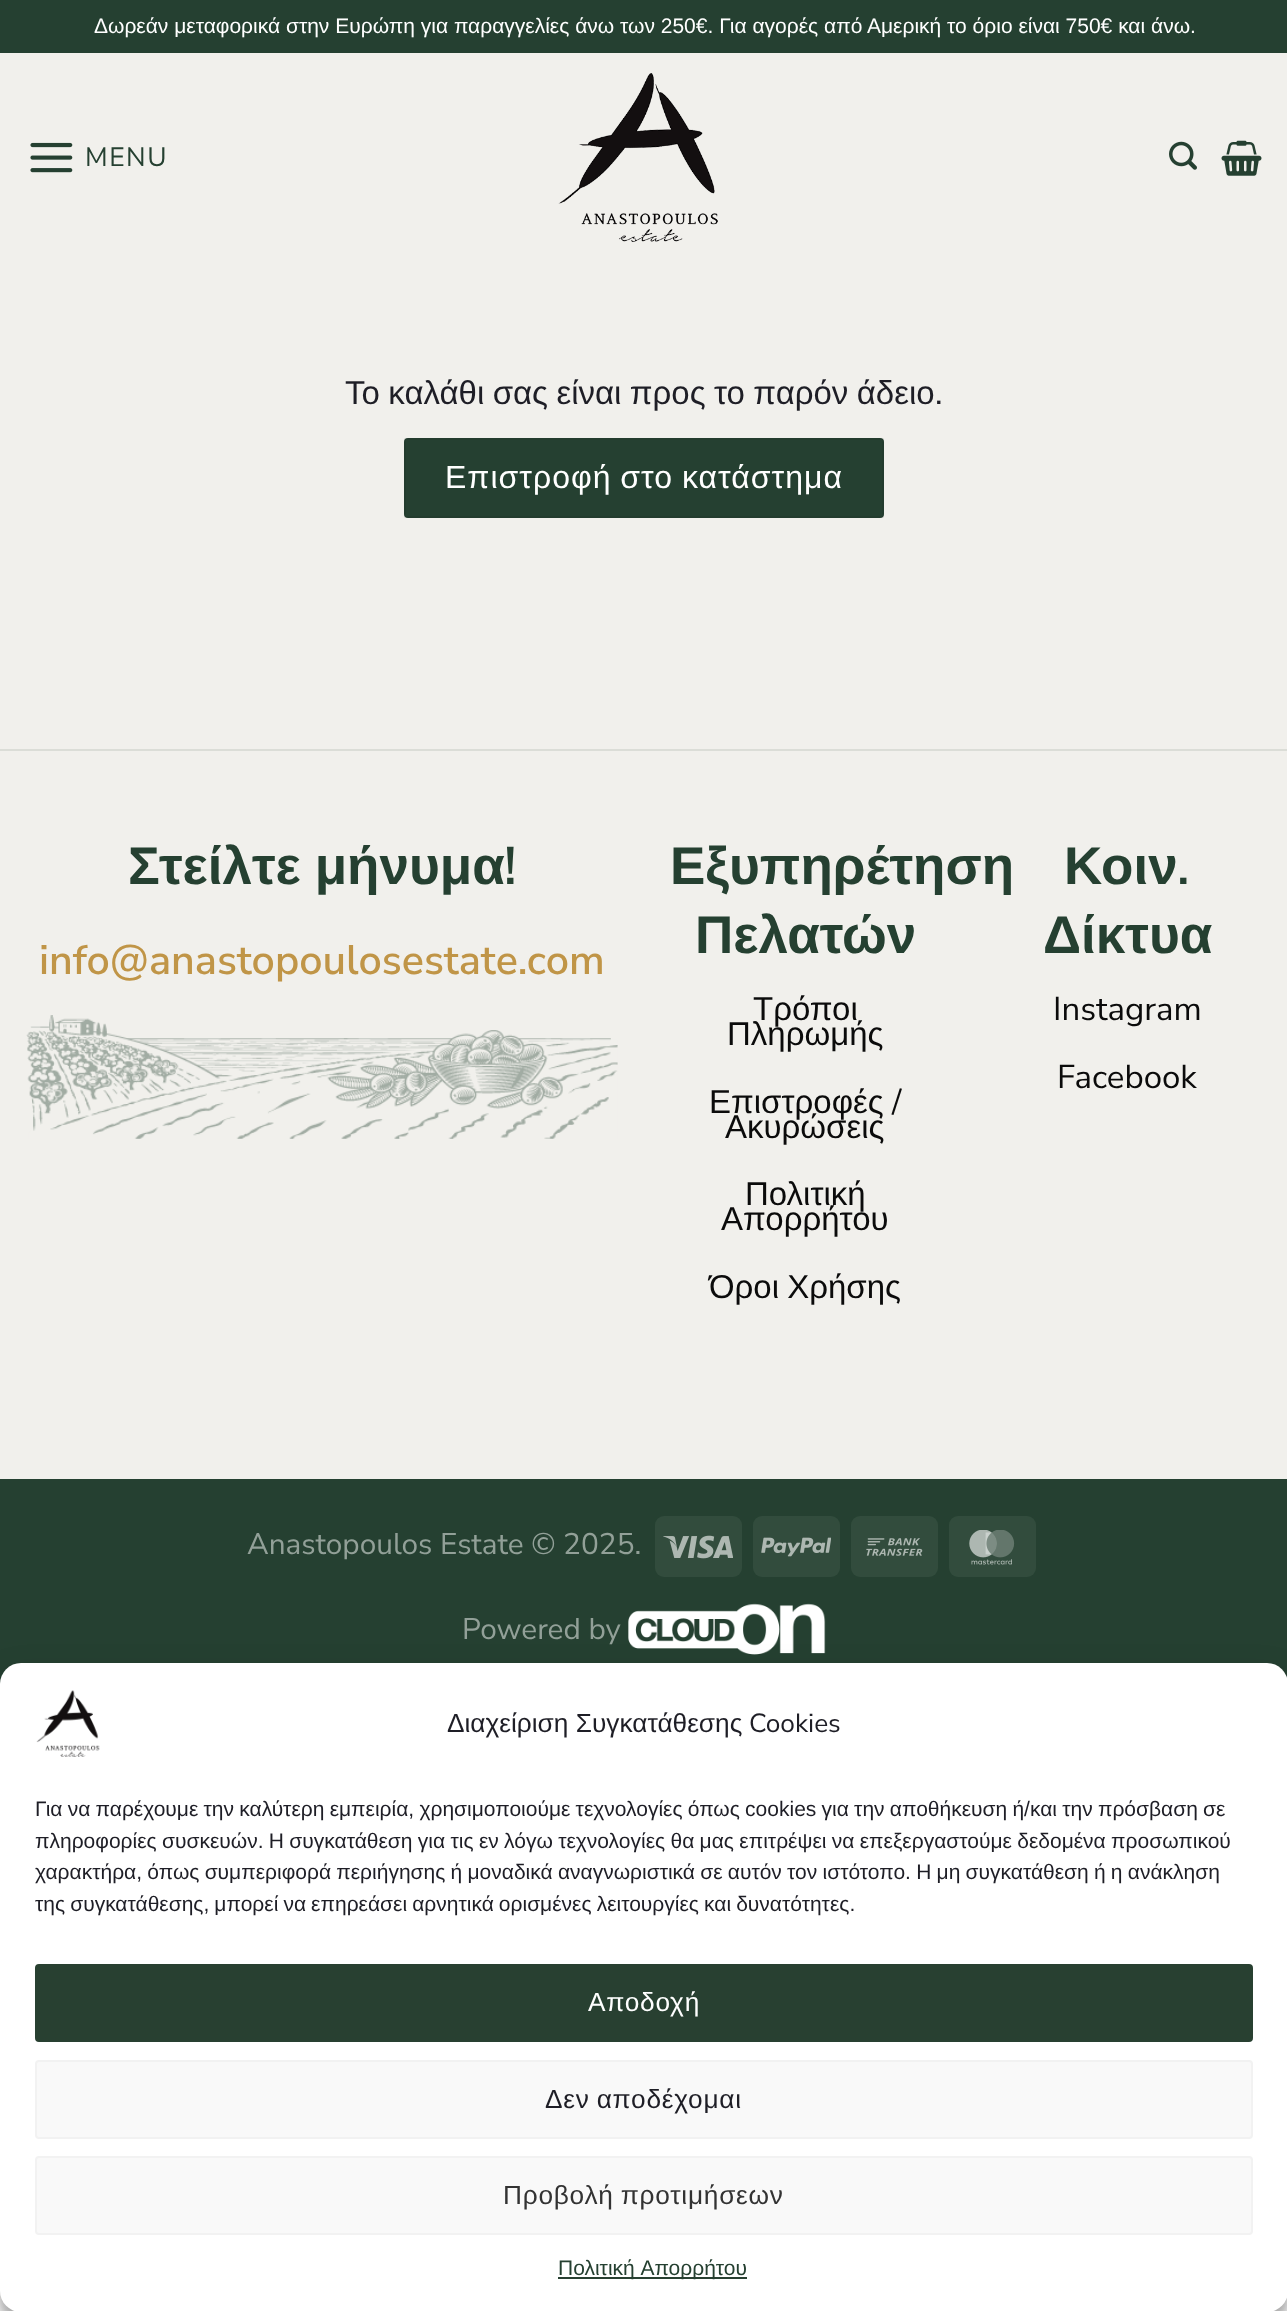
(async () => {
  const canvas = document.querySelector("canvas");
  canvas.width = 1287;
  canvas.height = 2311;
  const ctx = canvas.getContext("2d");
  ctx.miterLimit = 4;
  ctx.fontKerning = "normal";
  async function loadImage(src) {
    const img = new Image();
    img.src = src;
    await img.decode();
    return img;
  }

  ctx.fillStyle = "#ffffff";
  ctx.fillRect(0, 0, 1287, 2311);
  ctx.fillStyle = "#f1f0ec";
  ctx.fillRect(0, 53, 1287, 1426);
  ctx.fillStyle = "#254031";
  ctx.fillRect(0, 0, 1287, 53);
  ctx.drawImage(await loadImage("img/1.png"), 30, 142, 43, 31);
  ctx.drawImage(await loadImage("img/2.png"), 558, 73, 160, 169);
  ctx.drawImage(await loadImage("img/3.png"), 1169, 141, 28, 29);
  ctx.drawImage(await loadImage("img/4.png"), 1221, 140, 41, 36);
  ctx.beginPath();
  ctx.roundRect(404, 438, 480, 80, 4);
  ctx.fill();
  ctx.strokeStyle = "rgba(0, 0, 0, 0.05)";
  ctx.lineWidth = 2;
  ctx.strokeRect(405, 439, 478, 78);
  ctx.fillStyle = "#dbddd7";
  ctx.fillRect(0, 749, 1287, 2);
  ctx.drawImage(await loadImage("img/5.png"), 26, 1015, 592, 124);
  ctx.fillStyle = "#254031";
  ctx.fillRect(0, 1479, 1287, 205);
  ctx.fillStyle = "#324c3d";
  ctx.beginPath();
  ctx.roundRect(655, 1516, 87, 61, 9);
  ctx.fill();
  ctx.drawImage(await loadImage("img/6.png"), 663, 1535, 70, 24);
  ctx.beginPath();
  ctx.roundRect(753, 1516, 87, 61, 9);
  ctx.fill();
  ctx.drawImage(await loadImage("img/7.png"), 761, 1537, 70, 20);
  ctx.beginPath();
  ctx.roundRect(851, 1516, 87, 61, 9);
  ctx.fill();
  ctx.drawImage(await loadImage("img/8.png"), 866, 1538, 57, 18);
  ctx.beginPath();
  ctx.roundRect(949, 1516, 87, 61, 9);
  ctx.fill();
  ctx.drawImage(await loadImage("img/9.png"), 969, 1530, 46, 35);
  ctx.drawImage(await loadImage("img/10.png"), 628, 1603, 198, 52);
  ctx.fillStyle = "rgba(0, 0, 0, 0.23)";
  ctx.filter = "blur(5px)";
  ctx.beginPath();
  ctx.roundRect(0, 1673, 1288, 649, 21);
  ctx.fill();
  ctx.filter = "none";
  ctx.fillStyle = "rgba(0, 0, 0, 0.19)";
  ctx.filter = "blur(17.5px)";
  ctx.beginPath();
  ctx.roundRect(0, 1680, 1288, 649, 21);
  ctx.fill();
  ctx.filter = "none";
  ctx.fillStyle = "#ffffff";
  ctx.beginPath();
  ctx.roundRect(0, 1663, 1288, 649, 21);
  ctx.fill();
  ctx.drawImage(await loadImage("img/11.png"), 36, 1690, 64, 67);
  ctx.fillStyle = "#284031";
  ctx.beginPath();
  ctx.roundRect(36, 1965, 1216, 76, 3);
  ctx.fill();
  ctx.strokeStyle = "#284031";
  ctx.stroke();
  ctx.fillStyle = "#f9f9f9";
  ctx.beginPath();
  ctx.roundRect(36, 2061, 1216, 77, 3);
  ctx.fill();
  ctx.strokeStyle = "#f2f2f2";
  ctx.stroke();
  ctx.beginPath();
  ctx.roundRect(36, 2157, 1216, 77, 3);
  ctx.fill();
  ctx.stroke();
  ctx.fillStyle = "#284031";
  ctx.fillRect(558, 2277, 189, 2);
  ctx.font = "21px Liberation Sans";
  ctx.fillStyle = "#ffffff";
  ctx.fillText("Δωρεάν μεταφορικά στην Ευρώπη για παραγγελίες άνω των 250€. Για αγορές από Αμερική το όριο είναι 750€ και άνω.", 94, 33);
  ctx.letterSpacing = "1.5px";
  ctx.font = "26.5px Nunito Sans";
  ctx.fillStyle = "#254031";
  ctx.fillText("MENU", 85, 166);
  ctx.letterSpacing = "0px";
  ctx.wordSpacing = "-0.75px";
  ctx.font = "33px Liberation Sans";
  ctx.fillStyle = "#1e1e26";
  ctx.fillText("Το καλάθι σας είναι προς το παρόν άδειο", 345, 404);
  ctx.wordSpacing = "0px";
  ctx.font = "33px Nunito Sans";
  ctx.fillText(".", 935, 404);
  ctx.letterSpacing = "1px";
  ctx.wordSpacing = "-1px";
  ctx.font = "32px Liberation Sans";
  ctx.fillStyle = "#ffffff";
  ctx.fillText("Επιστροφή στο κατάστημα", 445, 488);
  ctx.letterSpacing = "0px";
  ctx.wordSpacing = "-0.75px";
  ctx.font = "bold 53px Liberation Sans";
  ctx.fillStyle = "#254031";
  ctx.fillText("Στείλτε μήνυμα", 128, 884);
  ctx.wordSpacing = "0px";
  ctx.font = "600 53px Nunito Sans";
  ctx.fillText("!", 504, 884);
  ctx.font = "600 41.25px Nunito Sans";
  ctx.fillStyle = "#c09547";
  ctx.fillText("info@anastopoulosestate.com", 39, 974);
  ctx.font = "bold 53px Liberation Sans";
  ctx.fillStyle = "#254031";
  ctx.fillText("Εξυπηρέτηση", 670, 884);
  ctx.fillText("Πελατών", 695, 953);
  ctx.font = "33px Liberation Sans";
  ctx.fillStyle = "#0b0b0b";
  for (const [text, x, y] of [
    ["Τρόποι", 753, 1020],
    ["Πληρωμής", 727, 1045],
    ["Επιστροφές", 709, 1113],
  ]) {
    ctx.fillText(text, x, y);
  }
  ctx.font = "33px Nunito Sans";
  ctx.fillText("/", 892, 1113);
  ctx.font = "33px Liberation Sans";
  for (const [text, x, y] of [
    ["Ακυρώσεις", 725, 1138],
    ["Πολιτική", 745, 1205],
    ["Απορρήτου", 721, 1230],
  ]) {
    ctx.fillText(text, x, y);
  }
  ctx.wordSpacing = "-1px";
  ctx.fillText("Όροι Χρήσης", 709, 1298);
  ctx.wordSpacing = "0px";
  ctx.font = "bold 53px Liberation Sans";
  ctx.fillStyle = "#254031";
  ctx.fillText("Κοιν", 1064, 884);
  ctx.font = "600 53px Nunito Sans";
  ctx.fillText(".", 1177, 884);
  ctx.font = "bold 53px Liberation Sans";
  ctx.fillText("Δίκτυα", 1043, 953);
  ctx.font = "33px Nunito Sans";
  ctx.fillStyle = "#0b0b0b";
  ctx.fillText("Instagram", 1053, 1020);
  ctx.fillText("Facebook", 1057, 1088);
  ctx.font = "29.75px Nunito Sans";
  ctx.fillStyle = "#92a098";
  ctx.fillText("Anastopoulos Estate © 2025.", 247, 1554);
  ctx.fillText("Powered by", 462, 1639);
  ctx.font = "26.25px Liberation Sans";
  ctx.fillStyle = "#1e1e26";
  ctx.fillText("Διαχείριση Συγκατάθεσης", 447, 1732);
  ctx.font = "26.25px Nunito Sans";
  ctx.fillText("Cookies", 749, 1732);
  ctx.wordSpacing = "-0.6px";
  ctx.font = "21px Liberation Sans";
  ctx.fillText("Για να παρέχουμε την καλύτερη εμπειρία, χρησιμοποιούμε τεχνολογίες όπως cookies για την αποθήκευση ή/και την πρόσβαση σε", 35, 1816);
  ctx.wordSpacing = "-0.5px";
  ctx.fillText("πληροφορίες συσκευών. Η συγκατάθεση για τις εν λόγω τεχνολογίες θα μας επιτρέψει να επεξεργαστούμε δεδομένα προσωπικού", 35, 1848);
  ctx.wordSpacing = "-0.6px";
  ctx.fillText("χαρακτήρα, όπως συμπεριφορά περιήγησης ή μοναδικά αναγνωριστικά σε αυτόν τον ιστότοπο. Η μη συγκατάθεση ή η ανάκληση", 35, 1879);
  ctx.wordSpacing = "-0.75px";
  ctx.fillText("της συγκατάθεσης, μπορεί να επηρεάσει αρνητικά ορισμένες λειτουργίες και δυνατότητες.", 35, 1911);
  ctx.letterSpacing = "0.75px";
  ctx.wordSpacing = "0px";
  ctx.font = "26.25px Liberation Sans";
  ctx.fillStyle = "#ffffff";
  ctx.fillText("Αποδοχή", 588, 2011);
  ctx.wordSpacing = "-1px";
  ctx.fillStyle = "#1e1e26";
  ctx.fillText("Δεν αποδέχομαι", 545, 2108);
  ctx.fillStyle = "#333333";
  ctx.fillText("Προβολή προτιμήσεων", 503, 2204);
  ctx.letterSpacing = "0px";
  ctx.wordSpacing = "1px";
  ctx.font = "21px Liberation Sans";
  ctx.fillStyle = "#254031";
  ctx.fillText("Πολιτική Απορρήτου", 558, 2275);
})();
